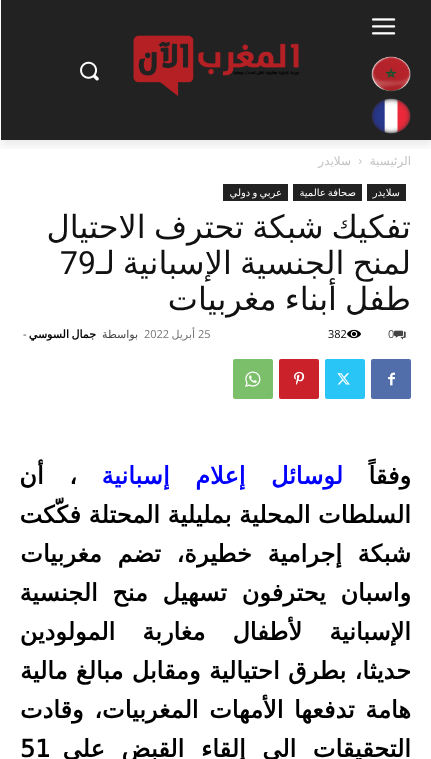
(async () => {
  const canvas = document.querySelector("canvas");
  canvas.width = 431;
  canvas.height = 759;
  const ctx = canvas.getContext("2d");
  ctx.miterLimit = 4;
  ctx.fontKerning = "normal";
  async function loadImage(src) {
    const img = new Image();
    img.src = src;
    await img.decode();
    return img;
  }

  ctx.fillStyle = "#ffffff";
  ctx.fillRect(0, 0, 431, 759);
  ctx.fillStyle = "#222222";
  ctx.fillRect(1, 0, 430, 140);
  ctx.drawImage(await loadImage("img/1.png"), 372, 18, 24, 17);
  ctx.drawImage(await loadImage("img/2.png"), 371, 56, 40, 36);
  ctx.drawImage(await loadImage("img/3.png"), 371, 98, 40, 36);
  ctx.drawImage(await loadImage("img/4.png"), 133, 35, 166, 62);
  ctx.drawImage(await loadImage("img/5.png"), 80, 61, 19, 20);
  ctx.save();
  ctx.beginPath();
  ctx.rect(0, 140, 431, 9);
  ctx.clip();
  ctx.fillStyle = "rgba(0, 0, 0, 0.08)";
  ctx.filter = "blur(4px)";
  ctx.beginPath();
  ctx.rect(1, 6, 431, 140);
  ctx.fill();
  ctx.filter = "none";
  ctx.restore();
  ctx.drawImage(await loadImage("img/6.png"), 359, 159, 3, 5);
  for (const [x, y, w, h, color] of [
    [367, 184, 39, 17, "#222222"],
    [293, 184, 69, 17, "#222222"],
    [223, 184, 65, 17, "#222222"],
  ]) {
    ctx.fillStyle = color;
    ctx.fillRect(x, y, w, h);
  }
  ctx.drawImage(await loadImage("img/7.png"), 394, 330, 12, 10);
  ctx.drawImage(await loadImage("img/8.png"), 347, 329, 14, 10);
  ctx.fillStyle = "#516eab";
  ctx.beginPath();
  ctx.roundRect(371, 359, 40, 40, 2);
  ctx.fill();
  ctx.drawImage(await loadImage("img/9.png"), 388, 372, 7, 14);
  ctx.fillStyle = "#29c5f6";
  ctx.beginPath();
  ctx.roundRect(325, 359, 40, 40, 2);
  ctx.fill();
  ctx.drawImage(await loadImage("img/10.png"), 337, 373, 13, 12);
  ctx.fillStyle = "#ca212a";
  ctx.beginPath();
  ctx.roundRect(279, 359, 40, 40, 2);
  ctx.fill();
  ctx.drawImage(await loadImage("img/11.png"), 294, 371, 11, 14);
  ctx.fillStyle = "#7bbf6a";
  ctx.beginPath();
  ctx.roundRect(233, 359, 40, 40, 2);
  ctx.fill();
  ctx.drawImage(await loadImage("img/12.png"), 245, 371, 16, 16);
  ctx.direction = "rtl";
  ctx.font = "12px DejaVu Sans";
  ctx.fillStyle = "#c3c3c3";
  ctx.fillText("الرئيسية", 411, 165);
  ctx.fillText("سلايدر", 351, 165);
  ctx.font = "10px DejaVu Sans";
  ctx.fillStyle = "#ffffff";
  ctx.fillText("سلايدر", 400, 196);
  ctx.wordSpacing = "-1px";
  ctx.fillText("صحافة عالمية", 356, 196);
  ctx.fillText("عربي و دولي", 282, 196);
  ctx.wordSpacing = "-2px";
  ctx.font = "32px DejaVu Sans";
  ctx.fillStyle = "#111111";
  ctx.fillText("تفكيك شبكة تحترف الاحتيال", 411, 238);
  ctx.fillText("لمنح الجنسية الإسبانية", 411, 274);
  ctx.wordSpacing = "0px";
  ctx.fillText("لـ", 115, 274);
  ctx.direction = "ltr";
  ctx.font = "32px Roboto";
  ctx.fillText("79", 60, 274);
  ctx.wordSpacing = "-2px";
  ctx.direction = "rtl";
  ctx.font = "32px DejaVu Sans";
  ctx.fillText("طفل أبناء مغربيات", 411, 310);
  ctx.wordSpacing = "0px";
  ctx.direction = "ltr";
  ctx.font = "11px Open Sans";
  ctx.fillStyle = "#444444";
  ctx.fillText("0", 388, 338);
  ctx.fillStyle = "#000000";
  ctx.fillText("382", 328, 338);
  ctx.fillStyle = "#767676";
  ctx.fillText("25", 198, 338);
  ctx.direction = "rtl";
  ctx.font = "11px DejaVu Sans";
  ctx.fillText("أبريل", 195, 338);
  ctx.direction = "ltr";
  ctx.font = "11px Open Sans";
  ctx.fillText("2022", 144, 338);
  ctx.direction = "rtl";
  ctx.font = "11px DejaVu Sans";
  ctx.fillStyle = "#444444";
  ctx.fillText("بواسطة", 138, 338);
  ctx.wordSpacing = "-1px";
  ctx.font = "bold 11px DejaVu Sans";
  ctx.fillStyle = "#000000";
  ctx.fillText("جمال السوسي", 96, 338);
  ctx.wordSpacing = "0px";
  ctx.direction = "ltr";
  ctx.font = "11px Open Sans";
  ctx.fillStyle = "#444444";
  ctx.fillText("-", 23, 338);
  ctx.direction = "rtl";
  ctx.font = "bold 24px DejaVu Sans";
  ctx.fillStyle = "#000000";
  ctx.fillText("وفقاً", 411, 484);
  ctx.wordSpacing = "18px";
  ctx.fillStyle = "#0000ff";
  ctx.fillText("لوسائل إعلام إسبانية", 343, 484);
  ctx.fillStyle = "#000000";
  ctx.fillText("، أن", 77, 484);
  ctx.wordSpacing = "0px";
  ctx.fillText("السلطات المحلية بمليلية المحتلة فكّكت", 411, 523);
  ctx.wordSpacing = "8px";
  ctx.fillText("شبكة إجرامية خطيرة، تضم مغربيات", 411, 562);
  ctx.wordSpacing = "7px";
  ctx.fillText("واسبان يحترفون تسهيل منح الجنسية", 411, 601);
  ctx.wordSpacing = "19.5px";
  ctx.fillText("الإسبانية لأطفال مغاربة المولودين", 411, 640);
  ctx.wordSpacing = "0.75px";
  ctx.fillText("حديثا، بطرق احتيالية ومقابل مبالغ مالية", 411, 679);
  ctx.wordSpacing = "3px";
  ctx.fillText("هامة تدفعها الأمهات المغربيات، وقادت", 411, 718);
  ctx.wordSpacing = "9px";
  ctx.fillText("التحقيقات الى إلقاء القبض على", 411, 757);
  ctx.wordSpacing = "0px";
  ctx.direction = "ltr";
  ctx.fillText("51", 20, 757);
})();
